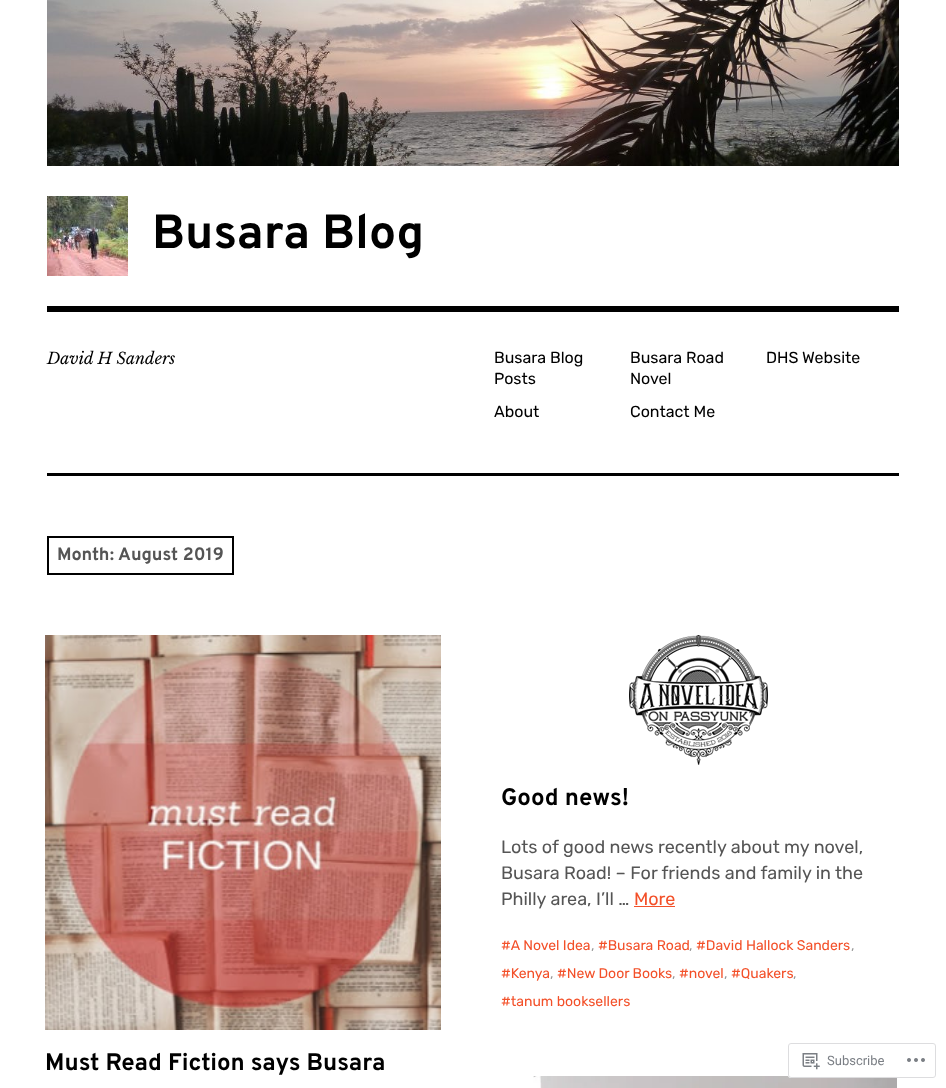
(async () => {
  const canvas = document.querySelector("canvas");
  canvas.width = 946;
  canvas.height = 1088;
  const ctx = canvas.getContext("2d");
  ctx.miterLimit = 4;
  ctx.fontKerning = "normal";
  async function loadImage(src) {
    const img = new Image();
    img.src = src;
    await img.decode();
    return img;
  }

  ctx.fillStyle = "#ffffff";
  ctx.fillRect(0, 0, 946, 1088);
  ctx.drawImage(await loadImage("img/1.png"), 47, 0, 852, 166);
  ctx.fillStyle = "#000000";
  ctx.fillRect(47, 306, 852, 6);
  ctx.drawImage(await loadImage("img/2.png"), 47, 196, 81, 80);
  ctx.fillRect(47, 473, 852, 3);
  ctx.strokeStyle = "#000000";
  ctx.lineWidth = 2;
  ctx.strokeRect(48, 537, 185, 37);
  ctx.drawImage(await loadImage("img/3.png"), 629, 635, 139, 130);
  ctx.fillStyle = "#f35029";
  ctx.fillRect(634, 906, 41, 1);
  ctx.drawImage(await loadImage("img/4.png"), 45, 635, 396, 395);
  ctx.drawImage(await loadImage("img/5.png"), 533, 1076, 364, 12);
  ctx.fillStyle = "rgba(255, 255, 255, 0.98)";
  ctx.beginPath();
  ctx.roundRect(788, 1043, 148, 35, 3);
  ctx.fill();
  ctx.beginPath();
  ctx.roundRect(788.5, 1043.5, 147, 34, 2.5);
  ctx.strokeStyle = "rgba(220, 220, 222, 0.98)";
  ctx.lineWidth = 1;
  ctx.stroke();
  ctx.drawImage(await loadImage("img/6.png"), 802, 1053, 18, 17);
  ctx.drawImage(await loadImage("img/7.png"), 907, 1058, 18, 4);
  ctx.font = "bold 48px Overpass";
  ctx.fillStyle = "#000000";
  ctx.fillText("Busara Blog", 152, 248);
  ctx.font = "italic 16px Libre Baskerville";
  ctx.fillText("David H Sanders", 47, 364);
  ctx.font = "16px Rubik";
  for (const [text, x, y] of [
    ["Busara Blog", 494, 363],
    ["Posts", 494, 384],
    ["About", 494, 417],
    ["Busara Road", 630, 363],
    ["Novel", 630, 384],
    ["Contact Me", 630, 417],
    ["DHS Website", 766, 363],
  ]) {
    ctx.fillText(text, x, y);
  }
  ctx.font = "bold 18px Overpass";
  ctx.fillStyle = "#555555";
  ctx.fillText("Month:", 57, 560);
  ctx.fillText("August 2019", 118, 560);
  ctx.font = "bold 24px Overpass";
  ctx.fillStyle = "#000000";
  ctx.fillText("Good news!", 501, 805);
  ctx.font = "18px Rubik";
  ctx.fillStyle = "#555555";
  for (const [text, x, y] of [
    ["Lots of good news recently about my novel,", 501, 853],
    ["Busara Road! – For friends and family in the", 501, 879],
    ["Philly area, I’ll …", 501, 905],
  ]) {
    ctx.fillText(text, x, y);
  }
  ctx.fillStyle = "#f35029";
  ctx.fillText("More", 634, 905);
  ctx.font = "14px Rubik";
  ctx.fillText("#A Novel Idea", 501, 950);
  ctx.fillStyle = "#999999";
  ctx.fillText(",", 591, 950);
  ctx.fillStyle = "#f35029";
  ctx.fillText("#Busara Road", 598, 950);
  ctx.fillStyle = "#999999";
  ctx.fillText(",", 689, 950);
  ctx.fillStyle = "#f35029";
  ctx.fillText("#David Hallock Sanders", 696, 950);
  ctx.fillStyle = "#999999";
  ctx.fillText(",", 851, 950);
  ctx.fillStyle = "#f35029";
  ctx.fillText("#Kenya", 501, 978);
  ctx.fillStyle = "#999999";
  ctx.fillText(",", 550, 978);
  ctx.fillStyle = "#f35029";
  ctx.fillText("#New Door Books", 557, 978);
  ctx.fillStyle = "#999999";
  ctx.fillText(",", 672, 978);
  ctx.fillStyle = "#f35029";
  ctx.fillText("#novel", 679, 978);
  ctx.fillStyle = "#999999";
  ctx.fillText(",", 724, 978);
  ctx.fillStyle = "#f35029";
  ctx.fillText("#Quakers", 731, 978);
  ctx.fillStyle = "#999999";
  ctx.fillText(",", 793, 978);
  ctx.fillStyle = "#f35029";
  ctx.fillText("#tanum booksellers", 501, 1006);
  ctx.font = "bold 24px Overpass";
  ctx.fillStyle = "#000000";
  ctx.fillText("Must Read Fiction says Busara", 45, 1070);
  ctx.font = "13px Roboto";
  ctx.fillStyle = "#7b7f85";
  ctx.fillText("Subscribe", 827, 1065);
})();
